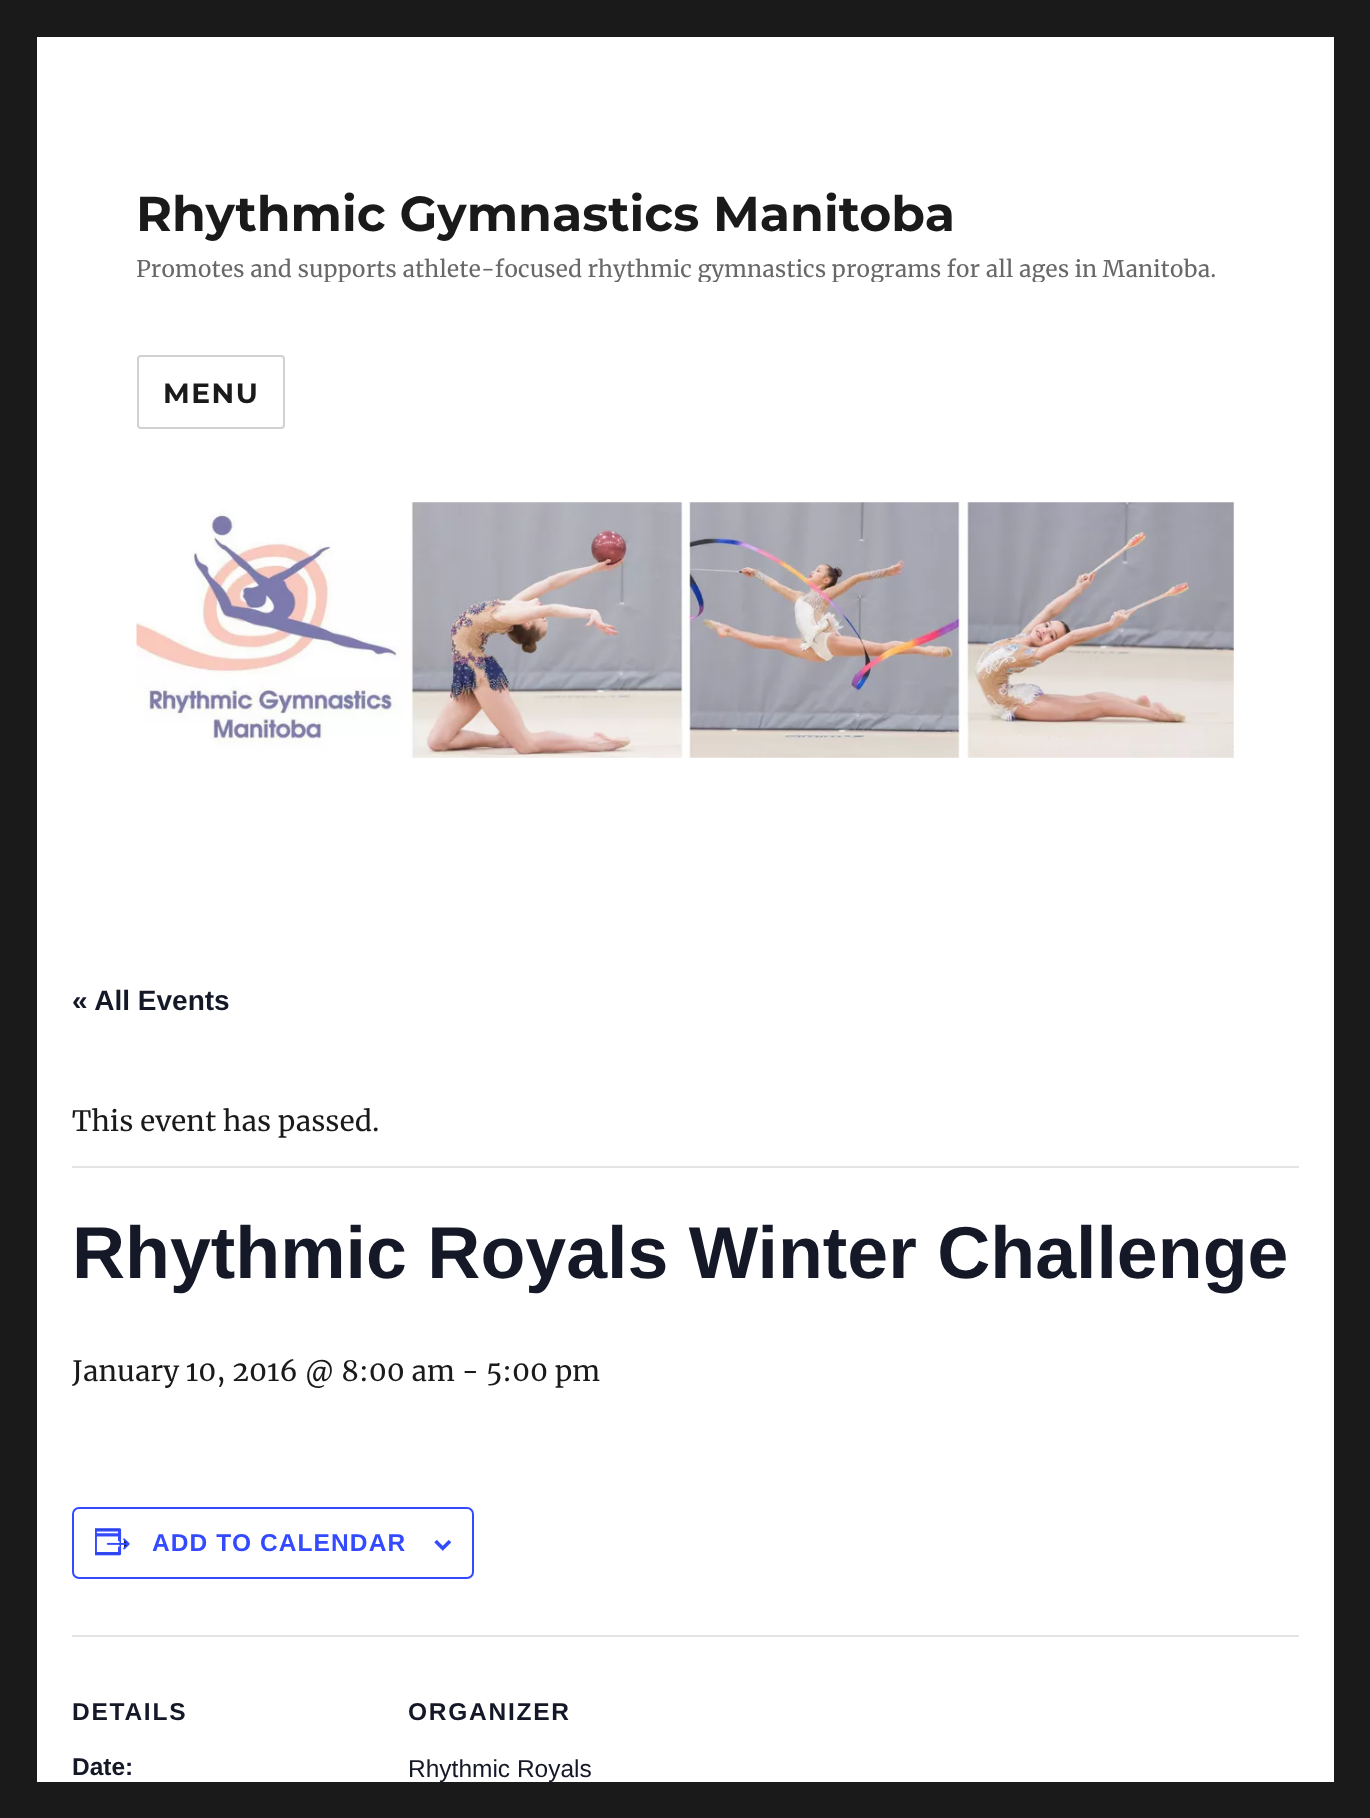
(async () => {
  const canvas = document.querySelector("canvas");
  canvas.width = 1370;
  canvas.height = 1818;
  const ctx = canvas.getContext("2d");
  ctx.miterLimit = 4;
  ctx.fontKerning = "normal";
  async function loadImage(src) {
    const img = new Image();
    img.src = src;
    await img.decode();
    return img;
  }

  ctx.fillStyle = "#1a1a1a";
  ctx.fillRect(0, 0, 1370, 1818);
  ctx.fillStyle = "#ffffff";
  ctx.fillRect(37, 37, 1297, 1745);
  ctx.beginPath();
  ctx.roundRect(138, 356, 146, 72, 3);
  ctx.strokeStyle = "#d1d1d1";
  ctx.lineWidth = 2;
  ctx.stroke();
  ctx.drawImage(await loadImage("img/1.png"), 136, 502, 1098, 256);
  ctx.fillStyle = "#e4e4e4";
  ctx.fillRect(72, 1166, 1227, 2);
  ctx.beginPath();
  ctx.roundRect(73, 1508, 400, 70, 6);
  ctx.strokeStyle = "#334aff";
  ctx.stroke();
  ctx.drawImage(await loadImage("img/2.png"), 95, 1528, 35, 28);
  ctx.drawImage(await loadImage("img/3.png"), 434, 1540, 18, 11);
  ctx.fillRect(72, 1635, 1227, 2);
  ctx.font = "100 49px Montserrat";
  ctx.fillStyle = "#1a1a1a";
  ctx.fillText("Rhythmic Gymnastics Manitoba", 136, 231);
  ctx.save();
  ctx.beginPath();
  ctx.rect(137, 184, 1079, 98);
  ctx.clip();
  ctx.font = "22.75px Merriweather";
  ctx.fillStyle = "#686868";
  ctx.fillText("Promotes and supports athlete-focused rhythmic gymnastics programs for all ages in Manitoba.", 136, 277);
  ctx.restore();
  ctx.letterSpacing = "1.5px";
  ctx.font = "100 28px Montserrat";
  ctx.fillText("MENU", 163, 403);
  ctx.letterSpacing = "0px";
  ctx.font = "bold 28px Liberation Sans";
  ctx.fillStyle = "#141827";
  ctx.fillText("« All Events", 72, 1010);
  ctx.font = "28px Merriweather";
  ctx.fillStyle = "#1a1a1a";
  ctx.fillText("This event has passed.", 72, 1131);
  ctx.font = "bold 73.5px Liberation Sans";
  ctx.fillStyle = "#141827";
  ctx.fillText("Rhythmic Royals Winter Challenge", 72, 1278);
  ctx.font = "28px Merriweather";
  ctx.fillStyle = "#1a1a1a";
  ctx.fillText("January 10, 2016 @ 8:00 am - 5:00 pm", 72, 1381);
  ctx.letterSpacing = "1.1px";
  ctx.font = "bold 24.5px Liberation Sans";
  ctx.fillStyle = "#334aff";
  ctx.fillText("ADD TO CALENDAR", 152, 1551);
  ctx.letterSpacing = "1.75px";
  ctx.fillStyle = "#141827";
  ctx.fillText("DETAILS", 72, 1720);
  ctx.letterSpacing = "0px";
  ctx.fillText("Date:", 72, 1775);
  ctx.letterSpacing = "1.75px";
  ctx.fillText("ORGANIZER", 408, 1720);
  ctx.letterSpacing = "0px";
  ctx.font = "24.5px Liberation Sans";
  ctx.fillText("Rhythmic Royals", 408, 1777);
})();
